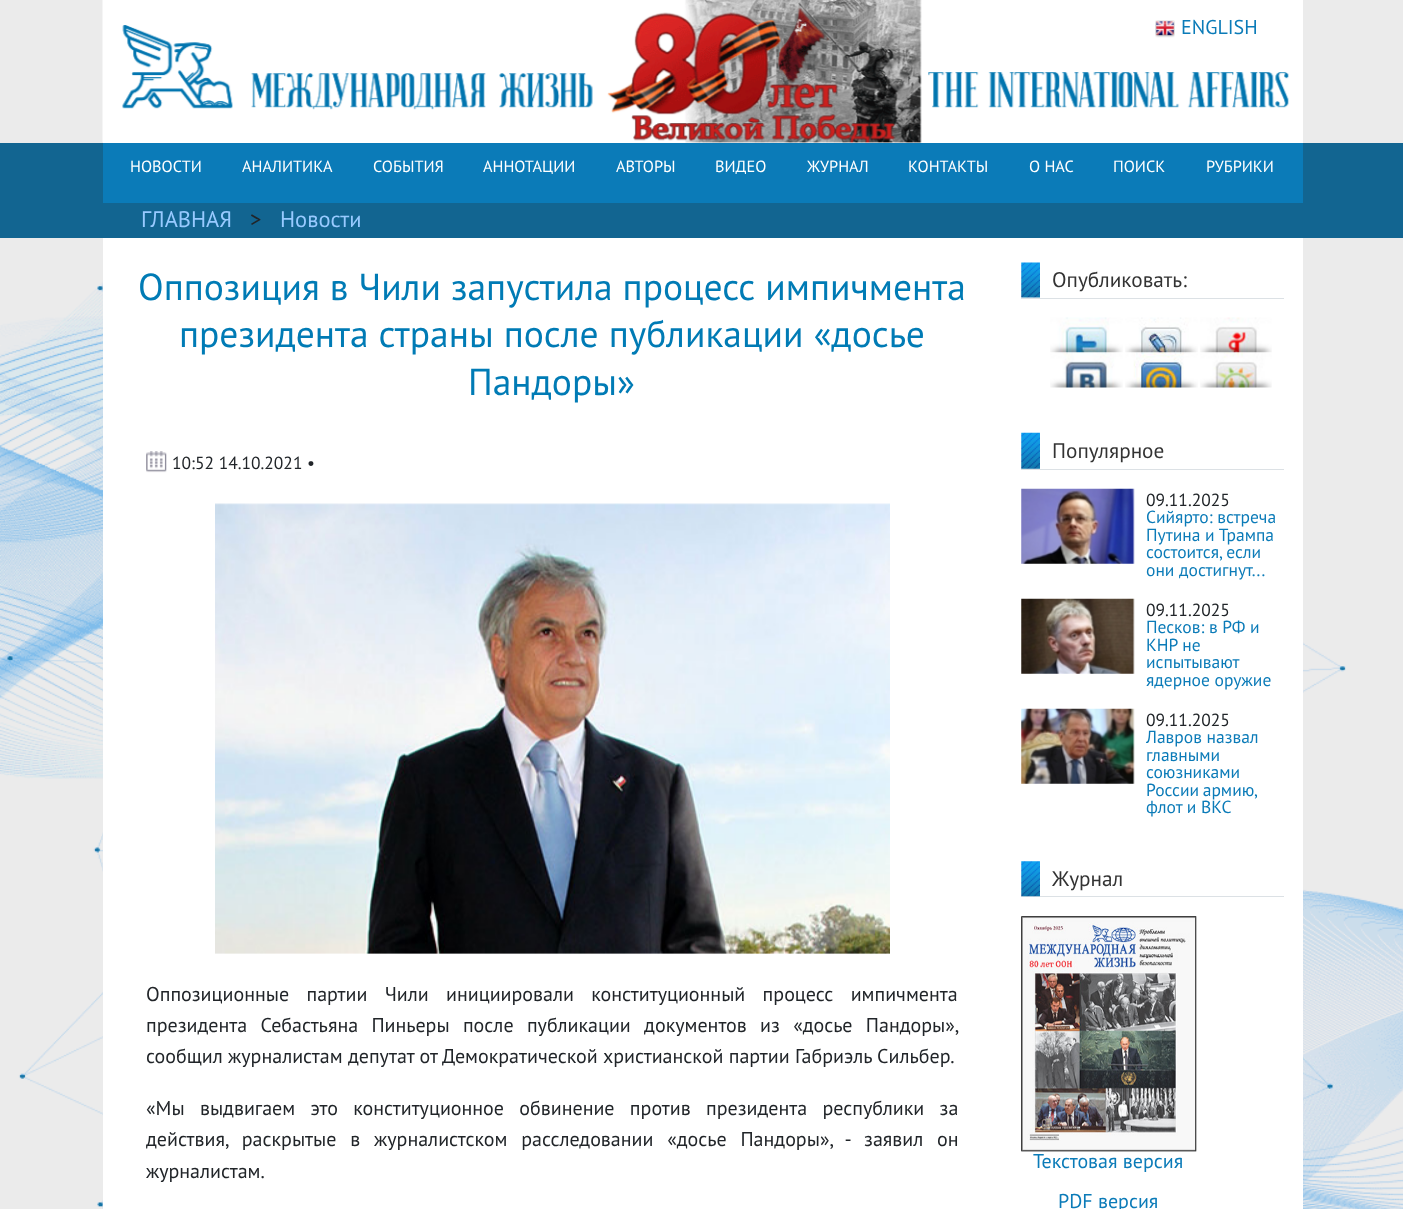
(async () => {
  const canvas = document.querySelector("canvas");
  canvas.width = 1403;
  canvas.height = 1209;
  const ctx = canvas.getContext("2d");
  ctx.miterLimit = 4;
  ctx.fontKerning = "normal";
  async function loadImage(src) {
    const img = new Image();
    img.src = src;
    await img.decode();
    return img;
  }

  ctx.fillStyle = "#ffffff";
  ctx.fillRect(0, 0, 1403, 1209);
  ctx.drawImage(await loadImage("img/1.png"), 0, 0, 1403, 1209);
  ctx.fillRect(103, 0, 1200, 143);
  ctx.drawImage(await loadImage("img/2.png"), 102, 0, 1187, 143);
  ctx.drawImage(await loadImage("img/3.png"), 1155, 20, 20, 18);
  for (const [x, y, w, h, color] of [
    [0, 143, 1403, 95, "#126591"],
    [103, 143, 1200, 60, "#0b7bb8"],
    [103, 238, 1200, 971, "#ffffff"],
  ]) {
    ctx.fillStyle = color;
    ctx.fillRect(x, y, w, h);
  }
  ctx.drawImage(await loadImage("img/4.png"), 146, 451, 21, 22);
  ctx.drawImage(await loadImage("img/5.png"), 215, 503, 675, 451);
  ctx.fillStyle = "#dce1e5";
  ctx.fillRect(1021, 298, 263, 1);
  ctx.drawImage(await loadImage("img/6.png"), 1021, 262, 19, 36);
  ctx.drawImage(await loadImage("img/7.png"), 1050, 317, 73, 36);
  ctx.drawImage(await loadImage("img/8.png"), 1125, 317, 73, 36);
  ctx.drawImage(await loadImage("img/9.png"), 1200, 317, 72, 36);
  ctx.drawImage(await loadImage("img/10.png"), 1050, 352, 73, 36);
  ctx.drawImage(await loadImage("img/11.png"), 1125, 352, 73, 36);
  ctx.drawImage(await loadImage("img/12.png"), 1200, 352, 72, 36);
  ctx.fillRect(1021, 469, 263, 1);
  ctx.drawImage(await loadImage("img/13.png"), 1021, 432, 19, 37);
  ctx.drawImage(await loadImage("img/14.png"), 1021, 488, 114, 76);
  ctx.drawImage(await loadImage("img/15.png"), 1021, 598, 114, 76);
  ctx.drawImage(await loadImage("img/16.png"), 1021, 708, 114, 76);
  ctx.fillRect(1021, 896, 263, 1);
  ctx.drawImage(await loadImage("img/17.png"), 1021, 861, 19, 36);
  ctx.drawImage(await loadImage("img/18.png"), 1021, 916, 176, 236);
  ctx.font = "20px PT Sans";
  ctx.fillStyle = "#0b7bb8";
  ctx.fillText("ENGLISH", 1181, 34);
  ctx.font = "16.25px PT Sans";
  ctx.fillStyle = "#ffffff";
  for (const [text, x, y] of [
    ["НОВОСТИ", 130, 172],
    ["АНАЛИТИКА", 242, 172],
    ["СОБЫТИЯ", 373, 172],
    ["АННОТАЦИИ", 483, 172],
    ["АВТОРЫ", 616, 172],
    ["ВИДЕО", 715, 172],
    ["ЖУРНАЛ", 807, 172],
    ["КОНТАКТЫ", 908, 172],
    ["О НАС", 1029, 172],
    ["ПОИСК", 1113, 172],
    ["РУБРИКИ", 1206, 172],
  ]) {
    ctx.fillText(text, x, y);
  }
  ctx.font = "22.5px PT Sans";
  ctx.fillStyle = "#98caff";
  ctx.fillText("ГЛАВНАЯ", 141, 227);
  ctx.fillStyle = "#212529";
  ctx.fillText(">", 250, 227);
  ctx.fillStyle = "#98caff";
  ctx.fillText("Новости", 280, 227);
  ctx.font = "37.5px PT Sans";
  ctx.fillStyle = "#007bb5";
  for (const [text, x, y] of [
    ["Оппозиция в Чили запустила процесс импичмента", 138, 300],
    ["президента страны после публикации «досье", 179, 347],
    ["Пандоры»", 468, 395],
  ]) {
    ctx.fillText(text, x, y);
  }
  ctx.font = "17.5px PT Sans";
  ctx.fillStyle = "#212529";
  ctx.fillText("10:52 14.10.2021 •", 172, 469);
  ctx.wordSpacing = "12px";
  ctx.font = "20px PT Sans";
  ctx.fillText("Оппозиционные партии Чили инициировали конституционный процесс импичмента", 146, 1001);
  ctx.wordSpacing = "8px";
  ctx.fillText("президента Себастьяна Пиньеры после публикации документов из «досье Пандоры»,", 146, 1032);
  ctx.wordSpacing = "0px";
  ctx.fillText("сообщил журналистам депутат от Демократической христианской партии Габриэль Сильбер.", 146, 1063);
  ctx.wordSpacing = "10px";
  ctx.fillText("«Мы выдвигаем это конституционное обвинение против президента республики за", 146, 1115);
  ctx.wordSpacing = "8.5px";
  ctx.fillText("действия, раскрытые в журналистском расследовании «досье Пандоры», - заявил он", 146, 1146);
  ctx.wordSpacing = "0px";
  ctx.fillText("журналистам.", 146, 1178);
  ctx.font = "21.25px PT Sans";
  ctx.fillStyle = "#333333";
  ctx.fillText("Опубликовать:", 1052, 287);
  ctx.fillText("Популярное", 1052, 458);
  ctx.font = "17.5px PT Sans";
  ctx.fillStyle = "#212529";
  ctx.fillText("09.11.2025", 1146, 506);
  ctx.fillStyle = "#0b7bb8";
  for (const [text, x, y] of [
    ["Сийярто: встреча", 1146, 523],
    ["Путина и Трампа", 1146, 541],
    ["состоится, если", 1146, 558],
    ["они достигнут...", 1146, 576],
  ]) {
    ctx.fillText(text, x, y);
  }
  ctx.fillStyle = "#212529";
  ctx.fillText("09.11.2025", 1146, 616);
  ctx.fillStyle = "#0b7bb8";
  for (const [text, x, y] of [
    ["Песков: в РФ и", 1146, 633],
    ["КНР не", 1146, 651],
    ["испытывают", 1146, 668],
    ["ядерное оружие", 1146, 686],
  ]) {
    ctx.fillText(text, x, y);
  }
  ctx.fillStyle = "#212529";
  ctx.fillText("09.11.2025", 1146, 726);
  ctx.fillStyle = "#0b7bb8";
  for (const [text, x, y] of [
    ["Лавров назвал", 1146, 743],
    ["главными", 1146, 761],
    ["союзниками", 1146, 778],
  ]) {
    ctx.fillText(text, x, y);
  }
  ctx.wordSpacing = "-1px";
  ctx.fillText("России армию,", 1146, 796);
  ctx.wordSpacing = "0px";
  ctx.fillText("флот и ВКС", 1146, 813);
  ctx.font = "21.25px PT Sans";
  ctx.fillStyle = "#333333";
  ctx.fillText("Журнал", 1052, 886);
  ctx.font = "20px PT Sans";
  ctx.fillStyle = "#0b7bb8";
  ctx.fillText("Текстовая версия", 1033, 1168);
  ctx.fillText("PDF версия", 1058, 1208);
})();
